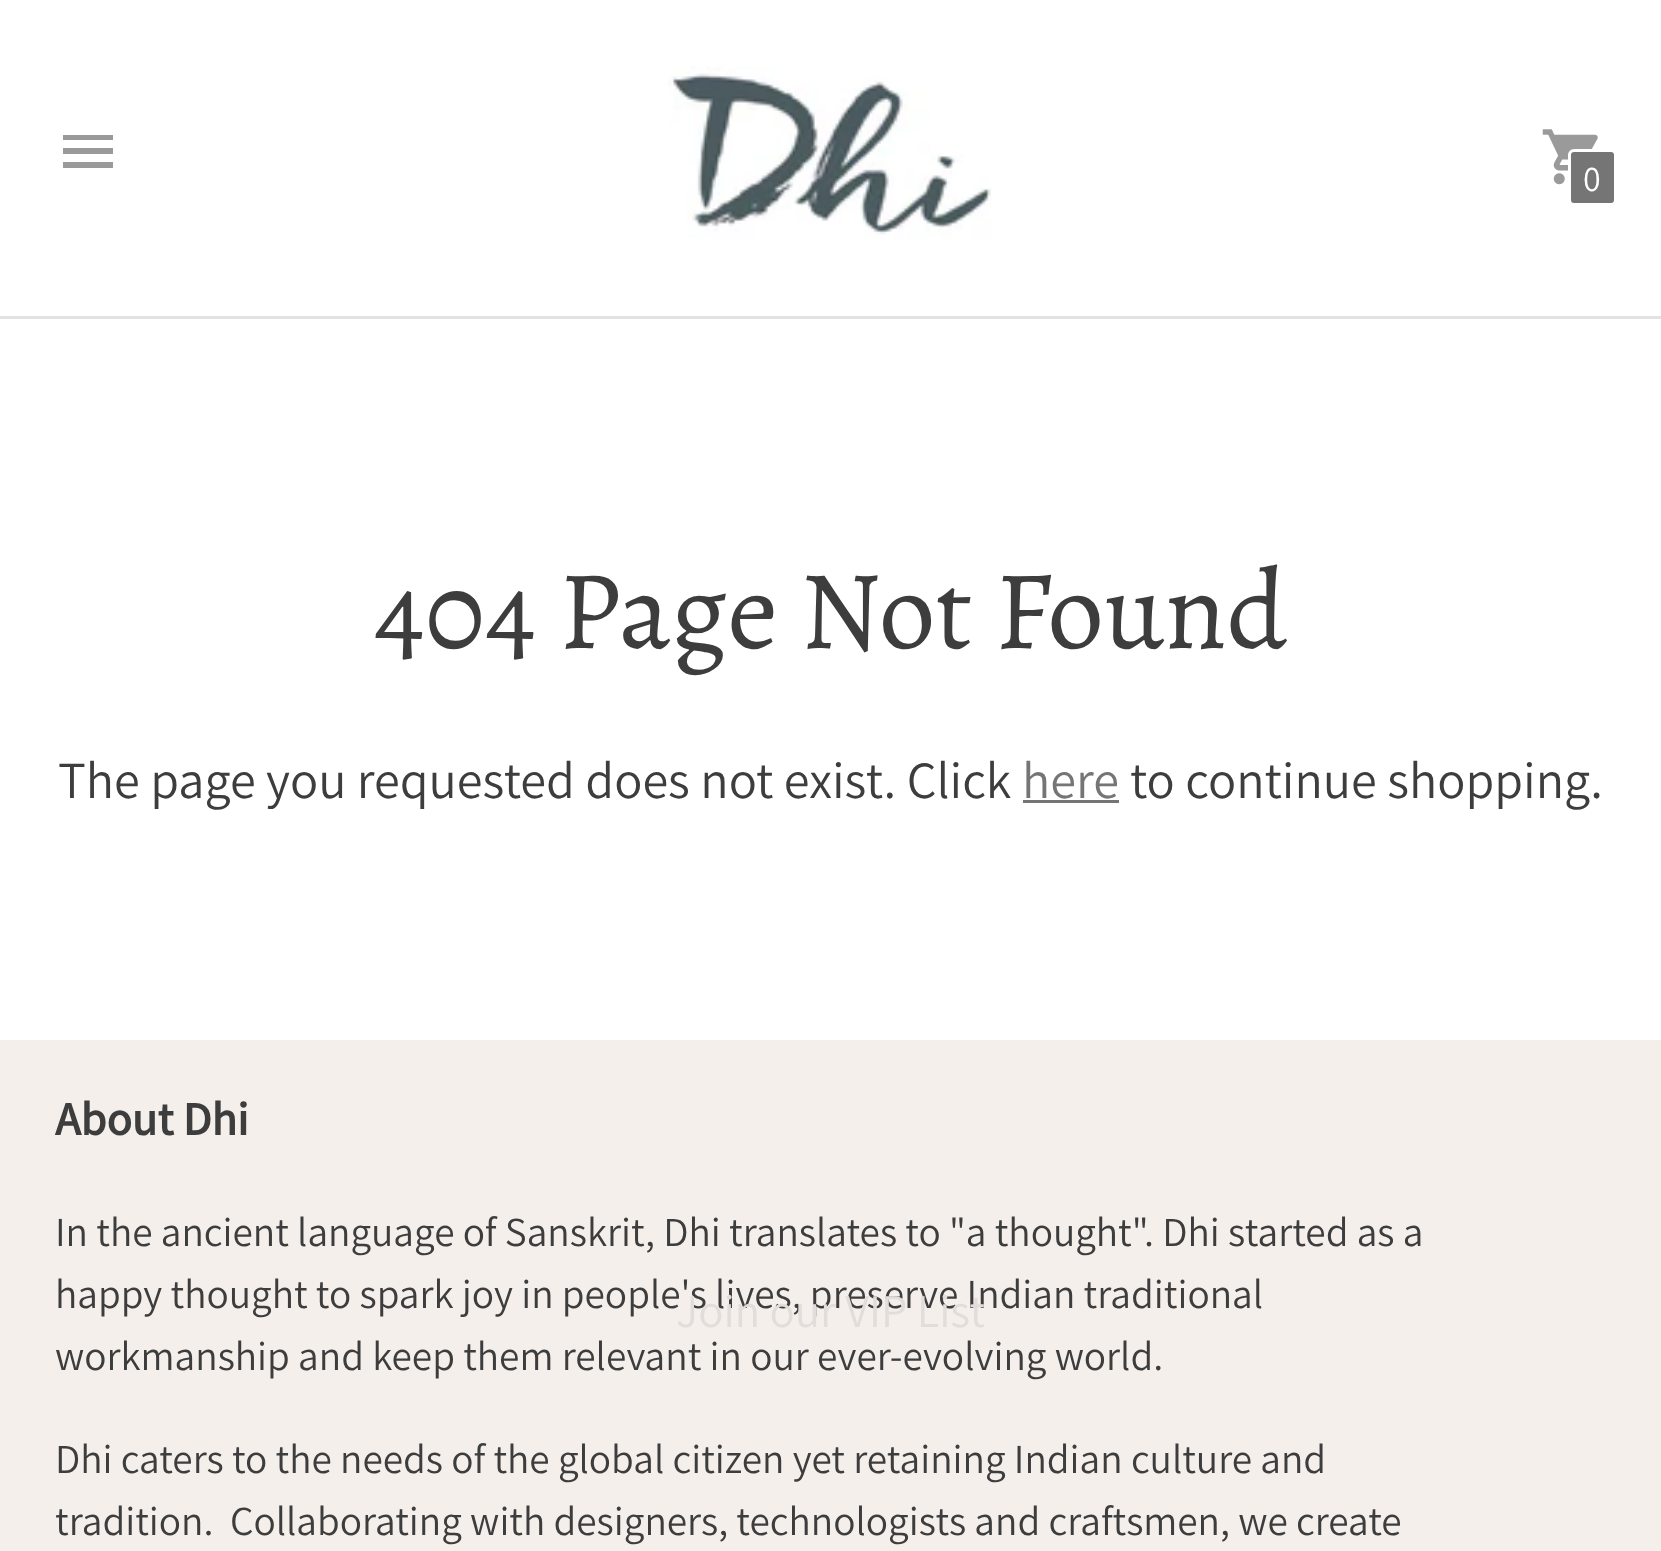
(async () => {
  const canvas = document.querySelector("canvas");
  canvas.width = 1661;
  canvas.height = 1551;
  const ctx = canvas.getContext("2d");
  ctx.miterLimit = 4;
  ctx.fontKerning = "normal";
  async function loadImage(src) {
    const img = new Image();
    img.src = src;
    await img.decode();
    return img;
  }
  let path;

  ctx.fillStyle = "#ffffff";
  ctx.fillRect(0, 0, 1661, 1551);
  ctx.fillStyle = "#e2e2e2";
  ctx.fillRect(0, 316, 1661, 3);
  ctx.fillStyle = "#9a9a9a";
  path = new Path2D("M63 168H113V162H63ZM63 154H113V148H63ZM63 135V140H113V135Z");
  ctx.fill(path);
  ctx.drawImage(await loadImage("img/1.png"), 668, 66, 324, 173);
  ctx.drawImage(await loadImage("img/2.png"), 1542, 129, 56, 56);
  ctx.fillStyle = "#757575";
  ctx.beginPath();
  ctx.roundRect(1569.5, 150.5, 46, 54, 4.5);
  ctx.fill();
  ctx.strokeStyle = "#ffffff";
  ctx.lineWidth = 3;
  ctx.stroke();
  ctx.fillRect(1023, 800, 96, 3);
  ctx.fillStyle = "#f5efec";
  ctx.fillRect(0, 1040, 1661, 511);
  ctx.font = "36px Assistant";
  ctx.fillStyle = "#ffffff";
  ctx.fillText("0", 1583, 191);
  ctx.font = "112.75px Alegreya";
  ctx.fillStyle = "#3d3d3d";
  ctx.fillText("404 Page Not Found", 374, 648);
  ctx.font = "52.25px Assistant";
  ctx.fillText("The page you requested does not exist. Click", 58, 798);
  ctx.fillStyle = "#757575";
  ctx.fillText("here", 1022, 798);
  ctx.fillStyle = "#3d3d3d";
  ctx.fillText("to continue shopping.", 1130, 798);
  ctx.font = "bold 46.75px Assistant";
  ctx.fillText("About Dhi", 55, 1135);
  ctx.font = "41.25px Assistant";
  for (const [text, x, y] of [
    ["In the ancient language of Sanskrit, Dhi translates to \"a thought\". Dhi started as a", 55, 1246],
    ["happy thought to spark joy in people's lives, preserve Indian traditional", 55, 1308],
    ["workmanship and keep them relevant in our ever-evolving world.", 55, 1370],
    ["Dhi caters to the needs of the global citizen yet retaining Indian culture and", 55, 1473],
    ["tradition.  Collaborating with designers, technologists and craftsmen, we create", 55, 1535],
  ]) {
    ctx.fillText(text, x, y);
  }
  ctx.font = "46.75px Assistant";
  ctx.fillStyle = "#e2ddda";
  ctx.fillText("Join our VIP List", 676, 1327);
})();
